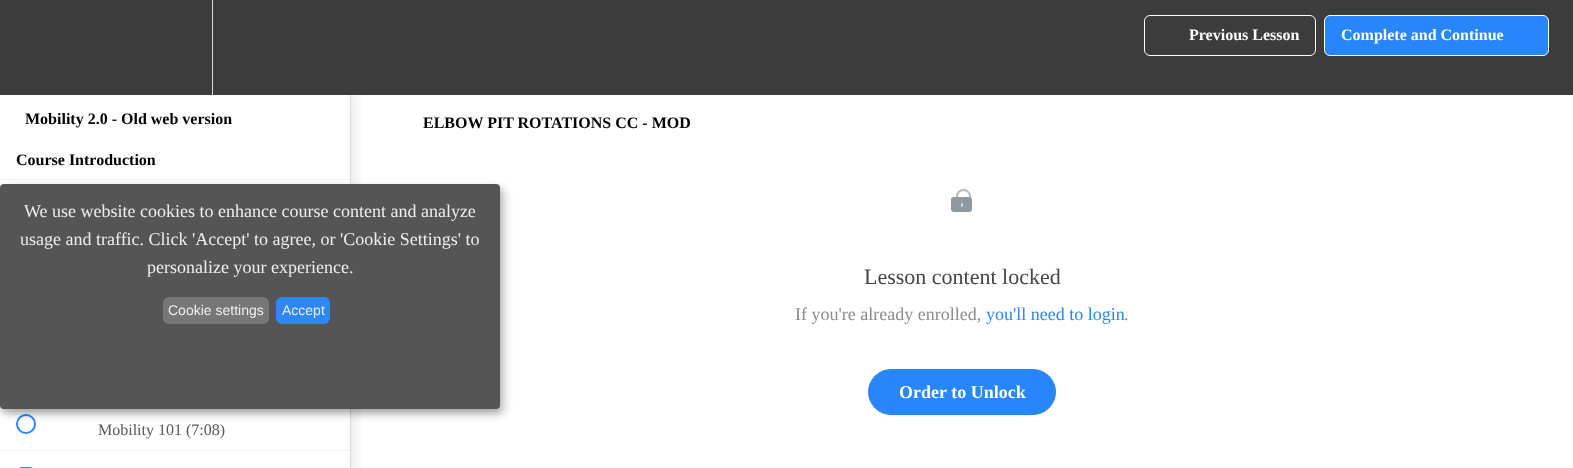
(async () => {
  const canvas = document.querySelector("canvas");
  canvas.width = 1573;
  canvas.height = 468;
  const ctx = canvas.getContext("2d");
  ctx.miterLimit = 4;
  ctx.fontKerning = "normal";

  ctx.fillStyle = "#ffffff";
  ctx.fillRect(0, 0, 1573, 468);
  ctx.save();
  ctx.beginPath();
  ctx.rect(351, 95, 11, 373);
  ctx.clip();
  ctx.fillStyle = "rgba(32, 39, 45, 0.15)";
  ctx.filter = "blur(10px)";
  ctx.beginPath();
  ctx.rect(0, 91, 351, 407);
  ctx.fill();
  ctx.filter = "none";
  ctx.restore();
  ctx.fillStyle = "#3c3c3c";
  ctx.fillRect(0, 0, 1573, 95);
  ctx.fillStyle = "#d7dadb";
  ctx.fillRect(212, 0, 1, 95);
  ctx.beginPath();
  ctx.roundRect(1144.5, 15.5, 171, 40, 5.5);
  ctx.strokeStyle = "#ffffff";
  ctx.stroke();
  ctx.fillStyle = "#2886fc";
  ctx.beginPath();
  ctx.roundRect(1324.5, 15.5, 224, 40, 5.5);
  ctx.fill();
  ctx.stroke();
  for (const [x, y, w, h, color] of [
    [350, 95, 1, 373, "#d7dadb"],
    [0, 179, 350, 1, "#eaf3ff"],
    [0, 450, 350, 1, "#eaf3ff"],
  ]) {
    ctx.fillStyle = color;
    ctx.fillRect(x, y, w, h);
  }
  ctx.beginPath();
  ctx.arc(26, 424, 9, 0, Math.PI * 2);
  ctx.strokeStyle = "#2886fc";
  ctx.lineWidth = 2;
  ctx.stroke();
  ctx.beginPath();
  ctx.roundRect(17, 468, 18, 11, 9);
  ctx.stroke();
  ctx.beginPath();
  ctx.roundRect(957, 190, 13, 20, 6.5);
  ctx.strokeStyle = "#b5babf";
  ctx.stroke();
  ctx.fillStyle = "#8f989f";
  ctx.beginPath();
  ctx.roundRect(951, 197, 21, 15, 3);
  ctx.fill();
  ctx.fillStyle = "#d3d7dc";
  ctx.beginPath();
  ctx.roundRect(961, 203, 2, 4, 1);
  ctx.fill();
  ctx.fillStyle = "#2886fc";
  ctx.beginPath();
  ctx.roundRect(868.5, 369.5, 187, 45, 22.5);
  ctx.fill();
  ctx.strokeStyle = "#2886fc";
  ctx.lineWidth = 1;
  ctx.stroke();
  ctx.fillStyle = "rgba(0, 0, 0, 0.19)";
  ctx.filter = "blur(5px)";
  ctx.beginPath();
  ctx.roundRect(5, 189, 500, 225, 4);
  ctx.fill();
  ctx.filter = "none";
  ctx.fillStyle = "rgba(0, 0, 0, 0.2)";
  ctx.filter = "blur(3px)";
  ctx.beginPath();
  ctx.roundRect(0, 188, 500, 225, 4);
  ctx.fill();
  ctx.filter = "none";
  ctx.fillStyle = "#555555";
  ctx.beginPath();
  ctx.roundRect(0, 184, 500, 225, 4);
  ctx.fill();
  ctx.fillStyle = "#777777";
  ctx.beginPath();
  ctx.roundRect(163, 297, 106, 27, 6);
  ctx.fill();
  ctx.fillStyle = "#2d87f7";
  ctx.beginPath();
  ctx.roundRect(276, 297, 54, 27, 6);
  ctx.fill();
  ctx.font = "bold 16px Liberation Serif";
  ctx.fillStyle = "#ffffff";
  ctx.fillText("Previous Lesson", 1189, 40);
  ctx.fillText("Complete and Continue", 1341, 40);
  ctx.fillStyle = "#000000";
  ctx.fillText("Mobility 2.0 - Old web version", 25, 124);
  ctx.fillText("Course Introduction", 16, 165);
  ctx.font = "16px Liberation Serif";
  ctx.fillStyle = "#565656";
  ctx.fillText("Mobility 101 (7:08)", 98, 435);
  ctx.font = "bold 16px Liberation Serif";
  ctx.fillStyle = "#000000";
  ctx.fillText("ELBOW PIT ROTATIONS CC - MOD", 423, 128);
  ctx.font = "22px Liberation Serif";
  ctx.fillStyle = "#454545";
  ctx.fillText("Lesson content locked", 864, 284);
  ctx.font = "18px Liberation Serif";
  ctx.fillStyle = "#8b8b8b";
  ctx.fillText("If you're already enrolled,", 795, 320);
  ctx.fillStyle = "#2886fc";
  ctx.fillText("you'll need to login", 986, 320);
  ctx.fillStyle = "#8b8b8b";
  ctx.fillText(".", 1124, 320);
  ctx.font = "bold 18px Liberation Serif";
  ctx.fillStyle = "#ffffff";
  ctx.fillText("Order to Unlock", 899, 398);
  ctx.font = "18px Liberation Serif";
  ctx.fillStyle = "#eeeeee";
  for (const [text, x, y] of [
    ["We use website cookies to enhance course content and analyze", 24, 217],
    ["usage and traffic. Click 'Accept' to agree, or 'Cookie Settings' to", 20, 245],
    ["personalize your experience.", 147, 273],
  ]) {
    ctx.fillText(text, x, y);
  }
  ctx.font = "14px Liberation Sans";
  ctx.fillText("Cookie settings", 168, 315);
  ctx.fillText("Accept", 282, 315);
})();
